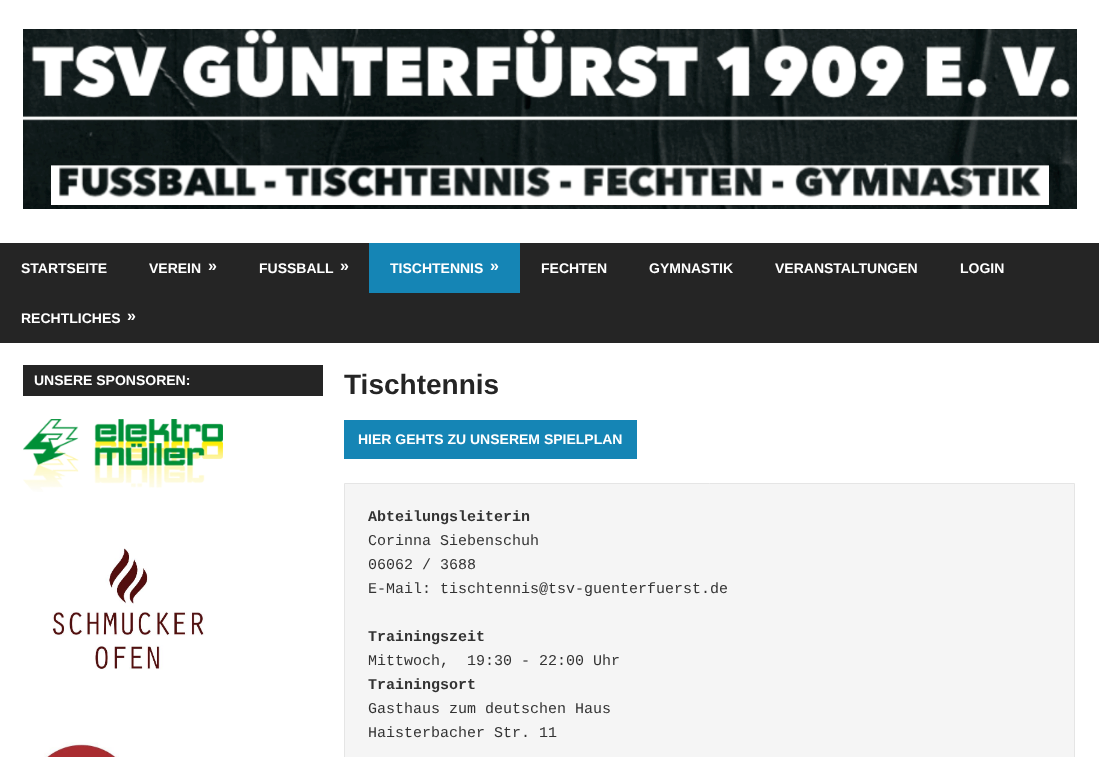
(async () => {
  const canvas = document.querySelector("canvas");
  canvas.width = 1099;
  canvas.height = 757;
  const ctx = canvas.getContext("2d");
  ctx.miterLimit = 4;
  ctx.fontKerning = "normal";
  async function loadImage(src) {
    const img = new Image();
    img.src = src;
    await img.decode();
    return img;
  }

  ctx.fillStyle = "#ffffff";
  ctx.fillRect(0, 0, 1099, 757);
  ctx.drawImage(await loadImage("img/1.png"), 23, 29, 1054, 180);
  for (const [x, y, w, h, color] of [
    [0, 243, 1099, 100, "#252525"],
    [369, 243, 151, 50, "#1585b5"],
    [23, 365, 300, 31, "#252525"],
  ]) {
    ctx.fillStyle = color;
    ctx.fillRect(x, y, w, h);
  }
  ctx.drawImage(await loadImage("img/2.png"), 23, 419, 200, 73);
  ctx.drawImage(await loadImage("img/3.png"), 52, 548, 153, 122);
  ctx.drawImage(await loadImage("img/4.png"), 44, 742, 75, 15);
  ctx.fillStyle = "#1585b5";
  ctx.fillRect(344, 420, 293, 39);
  ctx.fillStyle = "#f5f5f5";
  ctx.beginPath();
  ctx.rect(344.5, 483.5, 730, 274);
  ctx.fill();
  ctx.strokeStyle = "#e5e5e5";
  ctx.stroke();
  ctx.font = "bold 14px Liberation Sans";
  ctx.fillStyle = "#ffffff";
  ctx.fillText("STARTSEITE", 21, 273);
  ctx.fillText("VEREIN", 149, 273);
  ctx.font = "bold 16px Liberation Sans";
  ctx.fillText("»", 208, 271);
  ctx.font = "bold 14px Liberation Sans";
  ctx.fillText("FUSSBALL", 259, 273);
  ctx.font = "bold 16px Liberation Sans";
  ctx.fillText("»", 340, 271);
  ctx.font = "bold 14px Liberation Sans";
  ctx.fillText("TISCHTENNIS", 390, 273);
  ctx.font = "bold 16px Liberation Sans";
  ctx.fillText("»", 490, 271);
  ctx.font = "bold 14px Liberation Sans";
  for (const [text, x, y] of [
    ["FECHTEN", 541, 273],
    ["GYMNASTIK", 649, 273],
    ["VERANSTALTUNGEN", 775, 273],
    ["LOGIN", 960, 273],
    ["RECHTLICHES", 21, 323],
  ]) {
    ctx.fillText(text, x, y);
  }
  ctx.font = "bold 16px Liberation Sans";
  ctx.fillText("»", 127, 321);
  ctx.font = "bold 14px Liberation Sans";
  ctx.fillText("UNSERE SPONSOREN:", 34, 385);
  ctx.font = "bold 28px Liberation Sans";
  ctx.fillStyle = "#252525";
  ctx.fillText("Tischtennis", 344, 394);
  ctx.font = "bold 14px Liberation Sans";
  ctx.fillStyle = "#ffffff";
  ctx.fillText("HIER GEHTS ZU UNSEREM SPIELPLAN", 358, 444);
  ctx.font = "bold 15px Liberation Mono";
  ctx.fillStyle = "#333333";
  ctx.fillText("Abteilungsleiterin", 368, 521);
  ctx.font = "15px Liberation Mono";
  for (const [text, x, y] of [
    ["Corinna Siebenschuh", 368, 545],
    ["06062 / 3688", 368, 569],
    ["E-Mail: tischtennis@tsv-guenterfuerst.de", 368, 593],
  ]) {
    ctx.fillText(text, x, y);
  }
  ctx.font = "bold 15px Liberation Mono";
  ctx.fillText("Trainingszeit", 368, 641);
  ctx.font = "15px Liberation Mono";
  ctx.fillText("Mittwoch,  19:30 - 22:00 Uhr", 368, 665);
  ctx.font = "bold 15px Liberation Mono";
  ctx.fillText("Trainingsort", 368, 689);
  ctx.font = "15px Liberation Mono";
  ctx.fillText("Gasthaus zum deutschen Haus", 368, 713);
  ctx.fillText("Haisterbacher Str. 11", 368, 737);
})();
